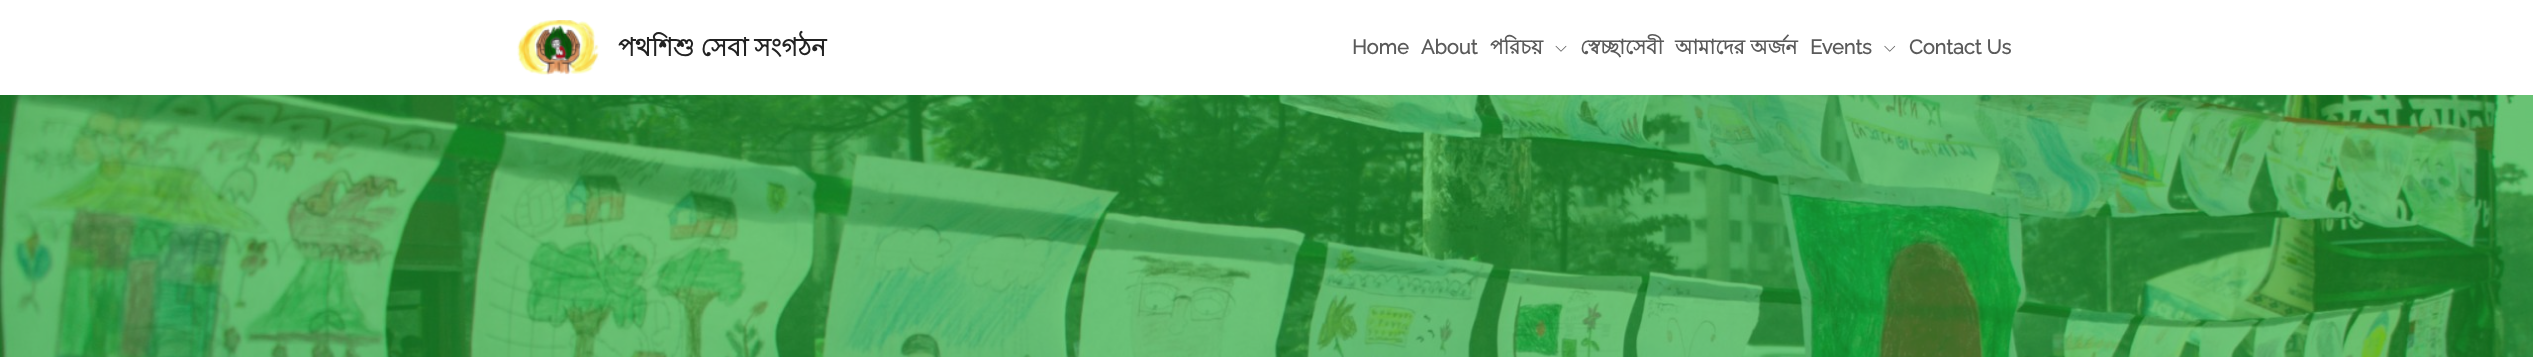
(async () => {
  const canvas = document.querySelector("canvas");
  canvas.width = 2533;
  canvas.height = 357;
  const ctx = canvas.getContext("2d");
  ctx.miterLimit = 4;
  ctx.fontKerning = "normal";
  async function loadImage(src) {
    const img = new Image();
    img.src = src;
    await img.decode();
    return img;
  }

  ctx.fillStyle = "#ffffff";
  ctx.fillRect(0, 0, 2533, 357);
  ctx.drawImage(await loadImage("img/1.png"), 517, 20, 82, 55);
  ctx.drawImage(await loadImage("img/2.png"), 1555, 45, 12, 7);
  ctx.drawImage(await loadImage("img/3.png"), 1884, 45, 12, 7);
  ctx.drawImage(await loadImage("img/4.png"), 0, 95, 2533, 262);
  ctx.wordSpacing = "-1px";
  ctx.font = "bold 25px Lohit Bengali";
  ctx.fillStyle = "#222222";
  ctx.fillText("পথশিশু সেবা সংগঠন", 618, 56);
  ctx.wordSpacing = "0px";
  ctx.font = "bold 20px Raleway";
  ctx.fillStyle = "#5a5a5a";
  ctx.fillText("Home", 1352, 54);
  ctx.fillText("About", 1421, 54);
  ctx.font = "bold 20px Lohit Bengali";
  for (const [text, x, y] of [
    ["পরিচয়", 1490, 54],
    ["স্বেচ্ছাসেবী", 1580, 54],
    ["আমাদের অর্জন", 1675, 54],
  ]) {
    ctx.fillText(text, x, y);
  }
  ctx.font = "bold 20px Raleway";
  ctx.fillText("Events", 1810, 54);
  ctx.fillText("Contact Us", 1909, 54);
})();
